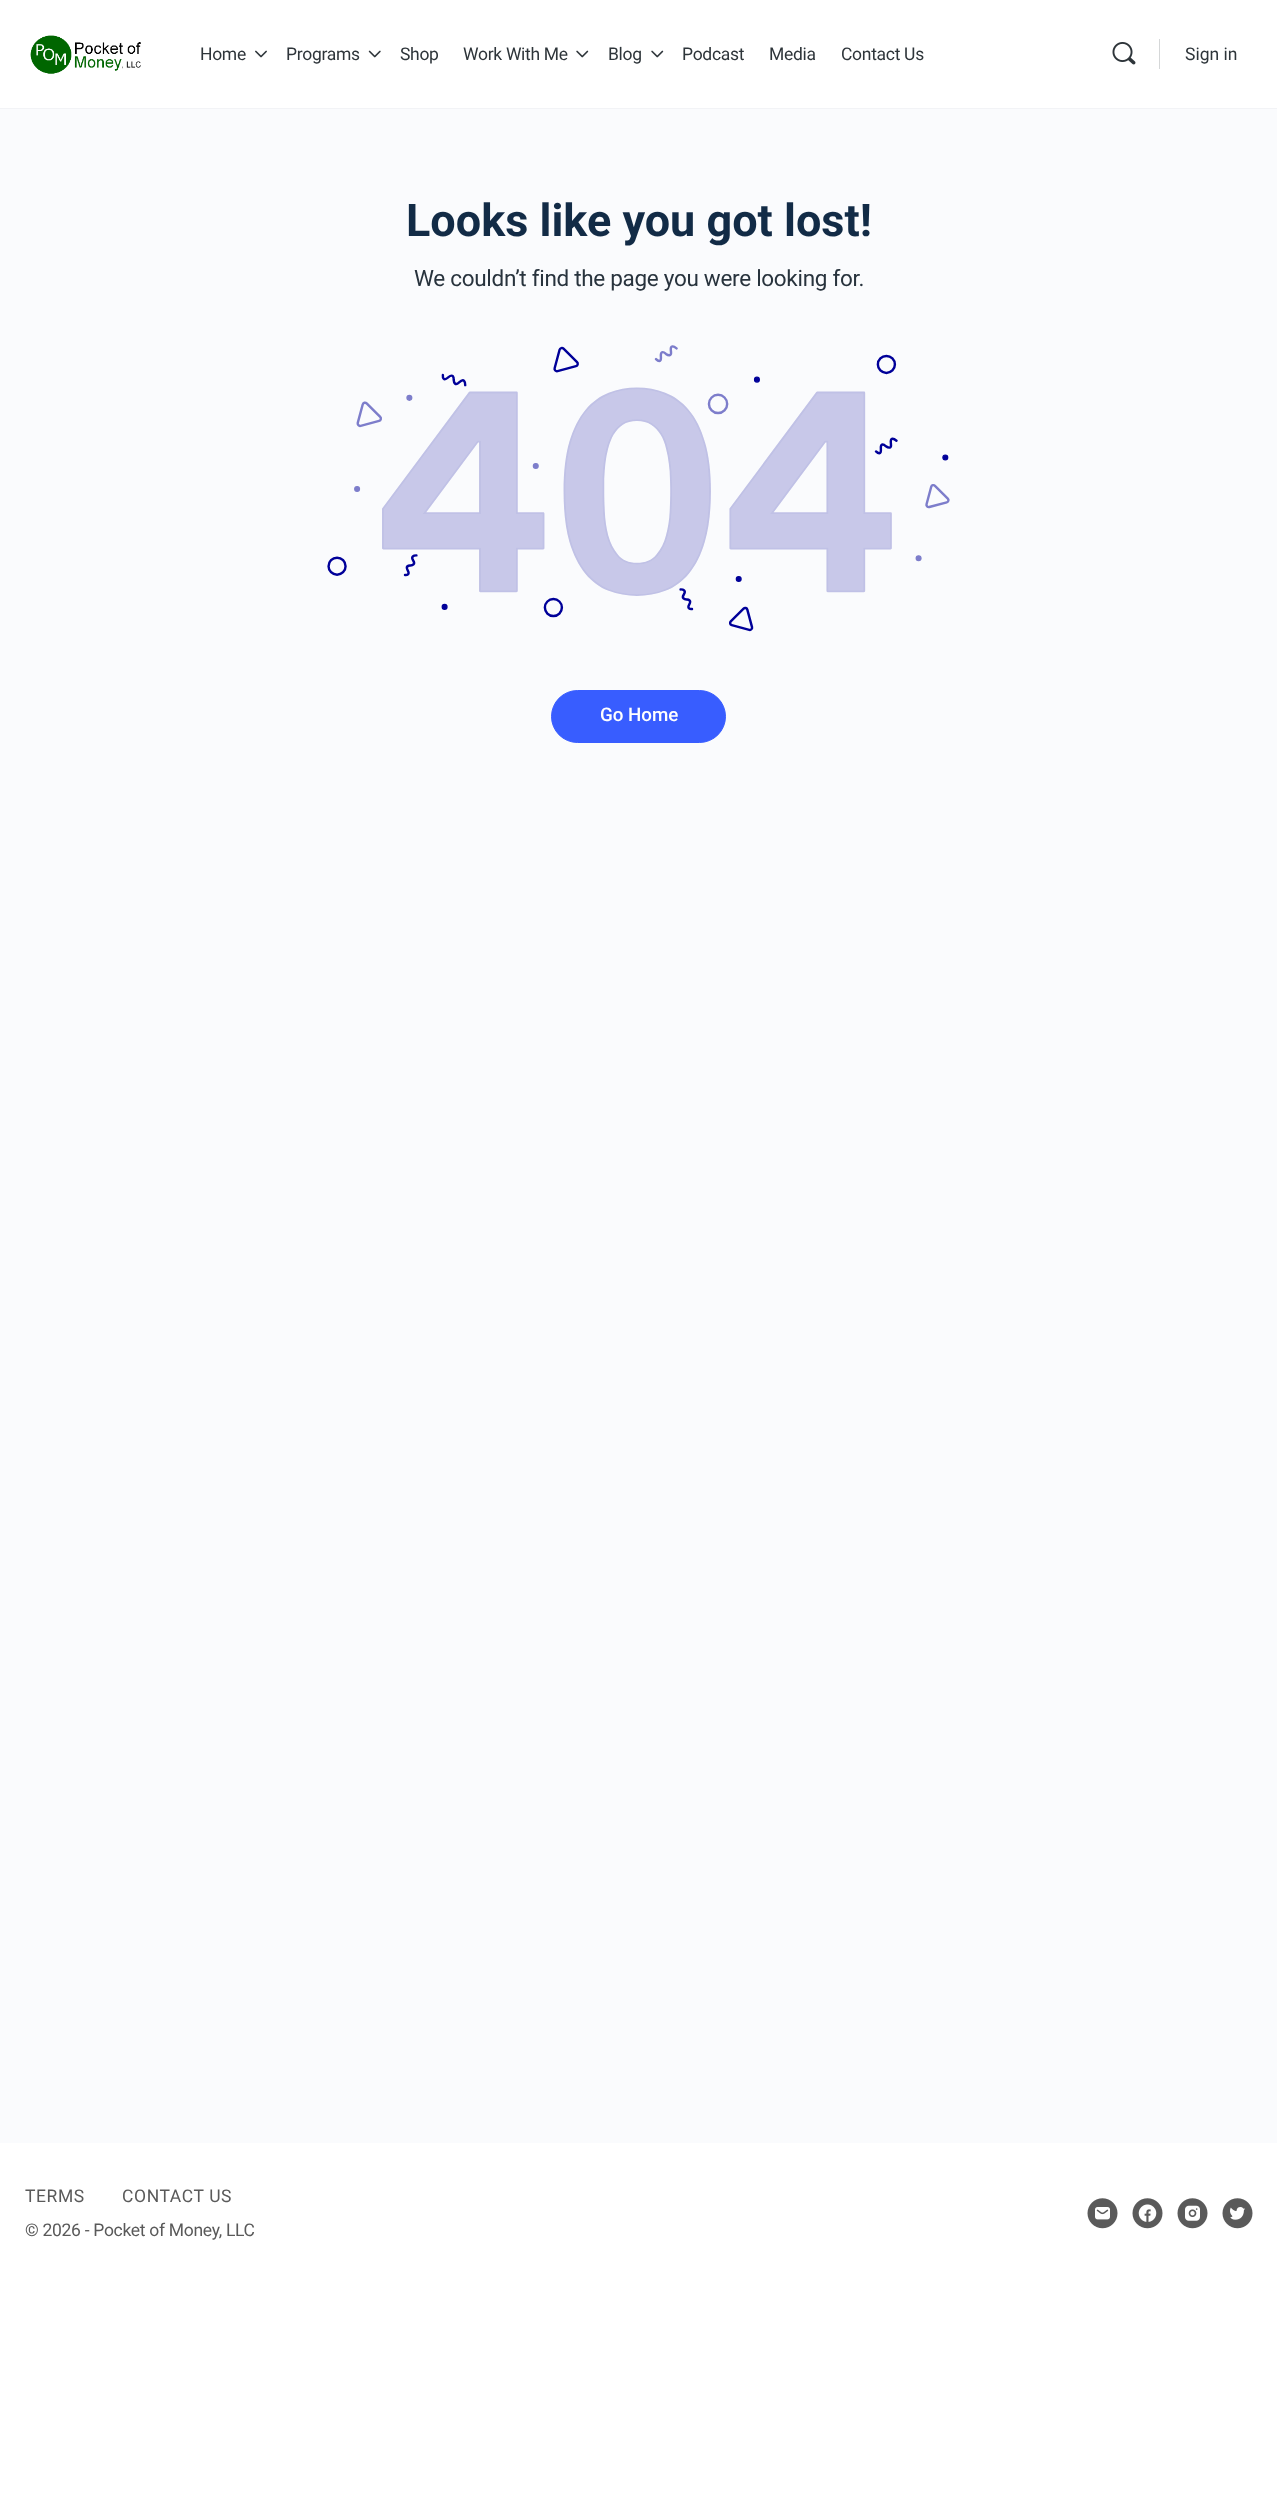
(async () => {
  const canvas = document.querySelector("canvas");
  canvas.width = 1277;
  canvas.height = 2519;
  const ctx = canvas.getContext("2d");
  ctx.miterLimit = 4;
  ctx.fontKerning = "normal";
  async function loadImage(src) {
    const img = new Image();
    img.src = src;
    await img.decode();
    return img;
  }
  let path;

  ctx.fillStyle = "#fafbfd";
  ctx.fillRect(0, 0, 1277, 2519);
  ctx.fillStyle = "#f2f3f6";
  path = new Path2D("M0 108V109H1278V1V108Z");
  ctx.fill(path);
  ctx.fillStyle = "#ffffff";
  ctx.fillRect(0, 0, 1277, 108);
  ctx.drawImage(await loadImage("img/1.png"), 30, 35, 111, 39);
  ctx.drawImage(await loadImage("img/2.png"), 255, 50, 12, 8);
  ctx.drawImage(await loadImage("img/3.png"), 368, 50, 13, 8);
  ctx.drawImage(await loadImage("img/4.png"), 576, 50, 13, 8);
  ctx.drawImage(await loadImage("img/4.png"), 651, 50, 13, 8);
  ctx.drawImage(await loadImage("img/5.png"), 1112, 42, 24, 23);
  ctx.fillStyle = "#d5d7d8";
  ctx.fillRect(1159, 39, 1, 30);
  ctx.drawImage(await loadImage("img/6.png"), 327, 345, 623, 287);
  ctx.fillStyle = "#385dff";
  ctx.beginPath();
  ctx.roundRect(551.5, 690.5, 174, 52, 26);
  ctx.fill();
  ctx.strokeStyle = "#385dff";
  ctx.stroke();
  ctx.fillStyle = "#ffffff";
  ctx.fillRect(0, 2143, 1277, 376);
  ctx.drawImage(await loadImage("img/7.png"), 1087, 2198, 31, 31);
  ctx.drawImage(await loadImage("img/8.png"), 1132, 2198, 31, 31);
  ctx.drawImage(await loadImage("img/9.png"), 1177, 2198, 31, 31);
  ctx.drawImage(await loadImage("img/10.png"), 1222, 2198, 31, 31);
  ctx.letterSpacing = "-0.3px";
  ctx.font = "17.5px Roboto";
  ctx.fillStyle = "#2e353a";
  for (const [text, x, y] of [
    ["Home", 200, 60],
    ["Programs", 286, 60],
    ["Shop", 400, 60],
    ["Work With Me", 463, 60],
    ["Blog", 608, 60],
    ["Podcast", 682, 60],
    ["Media", 769, 60],
    ["Contact Us", 841, 60],
  ]) {
    ctx.fillText(text, x, y);
  }
  ctx.letterSpacing = "0px";
  ctx.fillText("Sign in", 1185, 60);
  ctx.font = "bold 45px Roboto";
  ctx.fillStyle = "#122b46";
  ctx.fillText("Looks like you got lost!", 406, 236);
  ctx.letterSpacing = "-0.3px";
  ctx.font = "22.5px Roboto";
  ctx.fillStyle = "#28333d";
  ctx.fillText("We couldn’t find the page you were looking for.", 414, 286);
  ctx.letterSpacing = "0px";
  ctx.font = "500 18.75px Roboto";
  ctx.fillStyle = "#ffffff";
  ctx.fillText("Go Home", 600, 721);
  ctx.letterSpacing = "0.6px";
  ctx.font = "17.5px Roboto";
  ctx.fillStyle = "#5a5a5a";
  ctx.fillText("TERMS", 25, 2202);
  ctx.fillText("CONTACT US", 122, 2202);
  ctx.letterSpacing = "-0.3px";
  ctx.fillText("© 2026 - Pocket of Money, LLC", 25, 2236);
})();
